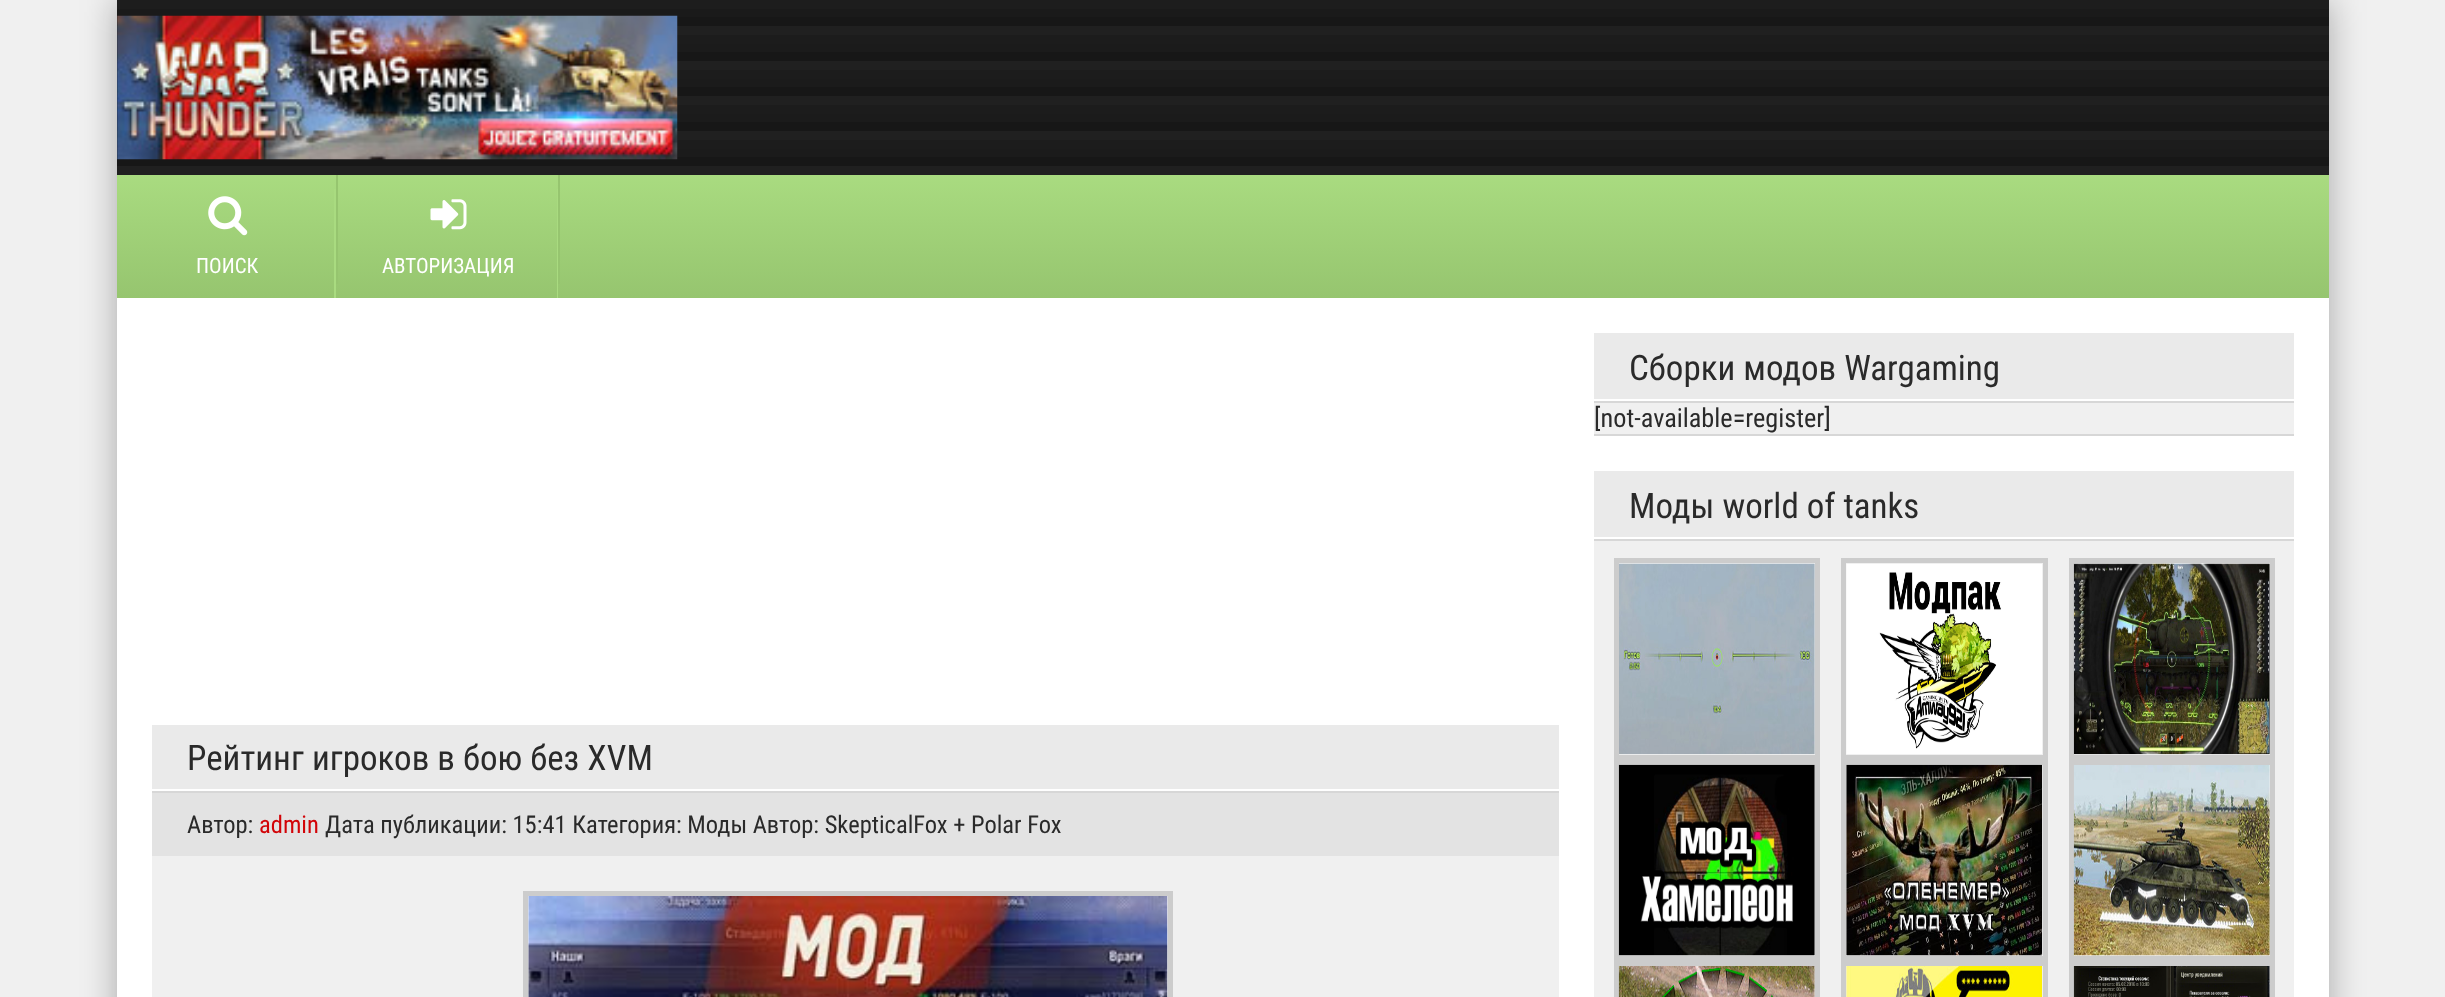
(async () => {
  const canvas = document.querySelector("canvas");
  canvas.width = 2445;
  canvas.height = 997;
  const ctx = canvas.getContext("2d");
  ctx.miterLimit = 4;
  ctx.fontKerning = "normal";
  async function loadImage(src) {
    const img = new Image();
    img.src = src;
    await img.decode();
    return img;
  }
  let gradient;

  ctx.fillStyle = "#f0f0f0";
  ctx.fillRect(0, 0, 2445, 997);
  ctx.fillStyle = "rgba(0, 0, 0, 0.3)";
  ctx.filter = "blur(17.5px)";
  ctx.beginPath();
  ctx.rect(117, 0, 2212, 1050);
  ctx.fill();
  ctx.filter = "none";
  ctx.fillStyle = "#ffffff";
  ctx.fillRect(117, 298, 2212, 699);
  gradient = ctx.createLinearGradient(135, 0, 135, 35);
  gradient.addColorStop(0.25, "#1d1d1d");
  gradient.addColorStop(0.25, "#1a1a1a");
  gradient.addColorStop(0.5, "#1a1a1a");
  gradient.addColorStop(0.5, "#131313");
  gradient.addColorStop(0.75, "#131313");
  gradient.addColorStop(0.75, "#242424");
  gradient.addColorStop(1, "#242424");
  ctx.fillStyle = gradient;
  ctx.fillRect(117, 0, 2212, 35);
  gradient = ctx.createLinearGradient(135, 35, 135, 70);
  gradient.addColorStop(0.25, "#1d1d1d");
  gradient.addColorStop(0.25, "#1a1a1a");
  gradient.addColorStop(0.5, "#1a1a1a");
  gradient.addColorStop(0.5, "#131313");
  gradient.addColorStop(0.75, "#131313");
  gradient.addColorStop(0.75, "#242424");
  gradient.addColorStop(1, "#242424");
  ctx.fillStyle = gradient;
  ctx.fillRect(117, 35, 2212, 35);
  gradient = ctx.createLinearGradient(135, 70, 135, 105);
  gradient.addColorStop(0.25, "#1d1d1d");
  gradient.addColorStop(0.25, "#1a1a1a");
  gradient.addColorStop(0.5, "#1a1a1a");
  gradient.addColorStop(0.5, "#131313");
  gradient.addColorStop(0.75, "#131313");
  gradient.addColorStop(0.75, "#242424");
  gradient.addColorStop(1, "#242424");
  ctx.fillStyle = gradient;
  ctx.fillRect(117, 70, 2212, 35);
  gradient = ctx.createLinearGradient(135, 105, 135, 140);
  gradient.addColorStop(0.25, "#1d1d1d");
  gradient.addColorStop(0.25, "#1a1a1a");
  gradient.addColorStop(0.5, "#1a1a1a");
  gradient.addColorStop(0.5, "#131313");
  gradient.addColorStop(0.75, "#131313");
  gradient.addColorStop(0.75, "#242424");
  gradient.addColorStop(1, "#242424");
  ctx.fillStyle = gradient;
  ctx.fillRect(117, 105, 2212, 35);
  gradient = ctx.createLinearGradient(135, 140, 135, 175);
  gradient.addColorStop(0.25, "#1d1d1d");
  gradient.addColorStop(0.25, "#1a1a1a");
  gradient.addColorStop(0.5, "#1a1a1a");
  gradient.addColorStop(0.5, "#131313");
  gradient.addColorStop(0.75, "#131313");
  gradient.addColorStop(0.75, "#242424");
  gradient.addColorStop(1, "#242424");
  ctx.fillStyle = gradient;
  ctx.fillRect(117, 140, 2212, 35);
  ctx.fillStyle = "rgba(27, 27, 27, 0.5)";
  ctx.fillRect(117, 17, 2212, 158);
  ctx.drawImage(await loadImage("img/1.png"), 117, 15, 561, 145);
  gradient = ctx.createLinearGradient(1223, 175, 1223, 298);
  gradient.addColorStop(0, "#a9db80");
  gradient.addColorStop(1, "#96c56f");
  ctx.fillStyle = gradient;
  ctx.fillRect(117, 175, 2212, 123);
  ctx.fillStyle = "#a9db80";
  ctx.fillRect(334, 189, 2, 109);
  ctx.fillStyle = "#96c56f";
  ctx.fillRect(336, 175, 2, 109);
  ctx.drawImage(await loadImage("img/2.png"), 208, 196, 40, 40);
  ctx.fillStyle = "#a9db80";
  ctx.fillRect(557, 189, 1, 109);
  ctx.fillStyle = "#96c56f";
  ctx.fillRect(558, 175, 2, 109);
  ctx.drawImage(await loadImage("img/3.png"), 430, 199, 37, 31);
  for (const [x, y, w, h, color] of [
    [1594, 403, 700, 31, "#f0f0f0"],
    [1594, 434, 700, 2, "#d7d7d7"],
    [1594, 333, 700, 66, "#eaeaea"],
    [1594, 401, 700, 2, "#d7d7d7"],
    [1594, 541, 700, 456, "#f0f0f0"],
    [1594, 471, 700, 66, "#eaeaea"],
    [1594, 539, 700, 2, "#d7d7d7"],
  ]) {
    ctx.fillStyle = color;
    ctx.fillRect(x, y, w, h);
  }
  ctx.strokeStyle = "#cccccc";
  ctx.lineWidth = 5;
  ctx.strokeRect(1616.5, 560.5, 201, 197);
  ctx.drawImage(await loadImage("img/4.png"), 1619, 563, 196, 192);
  ctx.strokeRect(1843.5, 560.5, 202, 197);
  ctx.drawImage(await loadImage("img/5.png"), 1846, 564, 196, 190);
  ctx.strokeRect(2071.5, 560.5, 201, 197);
  ctx.drawImage(await loadImage("img/6.png"), 2073, 563, 197, 192);
  ctx.strokeRect(1616.5, 762.5, 201, 196);
  ctx.drawImage(await loadImage("img/7.png"), 1618, 764, 197, 192);
  ctx.strokeRect(1843.5, 762.5, 202, 196);
  ctx.drawImage(await loadImage("img/8.png"), 1846, 764, 197, 192);
  ctx.strokeRect(2071.5, 762.5, 201, 196);
  ctx.drawImage(await loadImage("img/9.png"), 2073, 765, 197, 191);
  ctx.strokeRect(1616.5, 963.5, 201, 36);
  ctx.drawImage(await loadImage("img/10.png"), 1618, 966, 197, 31);
  ctx.strokeRect(1843.5, 963.5, 202, 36);
  ctx.drawImage(await loadImage("img/11.png"), 1846, 966, 197, 31);
  ctx.strokeRect(2071.5, 963.5, 201, 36);
  ctx.drawImage(await loadImage("img/12.png"), 2073, 966, 197, 31);
  for (const [x, y, w, h, color] of [
    [152, 856, 1407, 141, "#f0f0f0"],
    [152, 725, 1407, 64, "#eaeaea"],
    [152, 791, 1407, 2, "#d7d7d7"],
    [152, 793, 1407, 63, "#e3e3e3"],
  ]) {
    ctx.fillStyle = color;
    ctx.fillRect(x, y, w, h);
  }
  ctx.strokeRect(525.5, 893.5, 645, 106);
  ctx.drawImage(await loadImage("img/13.png"), 528, 896, 640, 101);
  ctx.font = "21px Roboto Condensed";
  ctx.fillStyle = "#ffffff";
  ctx.fillText("ПОИСК", 196, 273);
  ctx.fillText("АВТОРИЗАЦИЯ", 382, 273);
  ctx.font = "35px Roboto Condensed";
  ctx.fillStyle = "#2a2a2a";
  ctx.fillText("Сборки модов Wargaming", 1629, 380);
  ctx.font = "26.25px Roboto Condensed";
  ctx.fillText("[not-available=register]", 1594, 427);
  ctx.font = "35px Roboto Condensed";
  ctx.fillText("Моды world of tanks", 1629, 518);
  ctx.fillText("Рейтинг игроков в бою без XVM", 187, 770);
  ctx.font = "24.5px Roboto Condensed";
  ctx.fillText("Автор:", 187, 833);
  ctx.fillStyle = "#d20408";
  ctx.fillText("admin", 259, 833);
  ctx.fillStyle = "#2a2a2a";
  ctx.fillText("Дата публикации: 15:41 Категория: Моды Автор: SkepticalFox + Polar Fox", 325, 833);
})();
